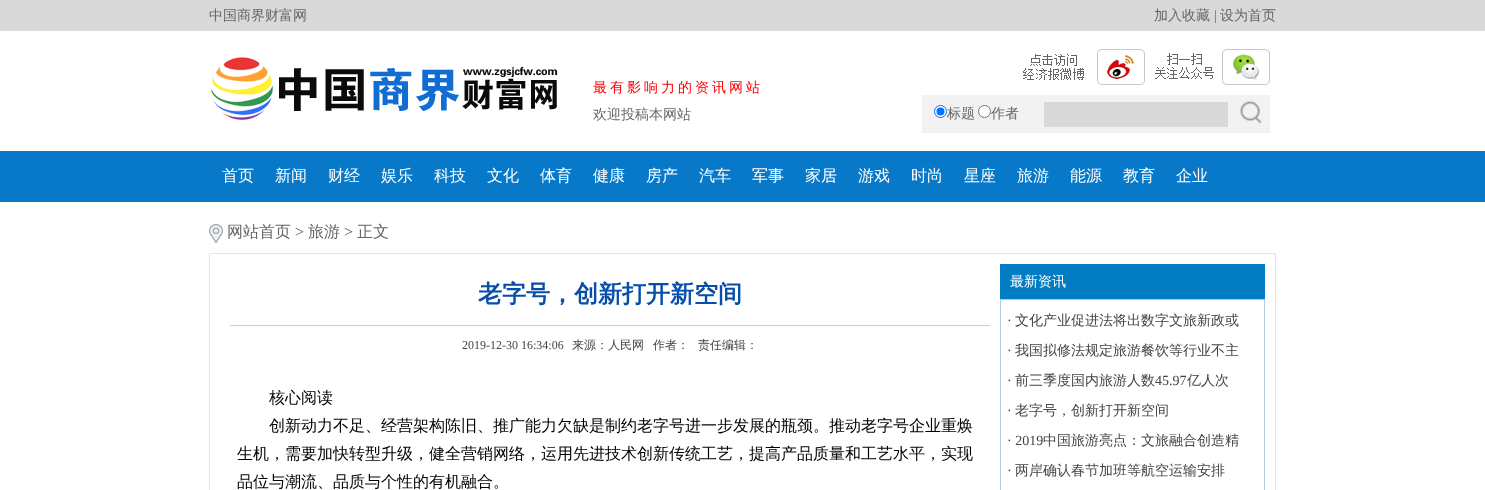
(async () => {
  const canvas = document.querySelector("canvas");
  canvas.width = 1485;
  canvas.height = 490;
  const ctx = canvas.getContext("2d");
  ctx.miterLimit = 4;
  ctx.fontKerning = "normal";
  async function loadImage(src) {
    const img = new Image();
    img.src = src;
    await img.decode();
    return img;
  }

  ctx.fillStyle = "#ffffff";
  ctx.fillRect(0, 0, 1485, 490);
  ctx.fillStyle = "#d9d9d9";
  ctx.fillRect(0, 0, 1485, 31);
  ctx.drawImage(await loadImage("img/1.png"), 211, 57, 347, 63);
  ctx.drawImage(await loadImage("img/2.png"), 1023, 49, 122, 36);
  ctx.drawImage(await loadImage("img/3.png"), 1155, 49, 115, 36);
  ctx.fillStyle = "#f2f2f2";
  ctx.fillRect(922, 95, 348, 38);
  ctx.fillStyle = "#ffffff";
  ctx.beginPath();
  ctx.arc(940.5, 111.5, 6, 0, Math.PI * 2);
  ctx.fill();
  ctx.strokeStyle = "#0075ff";
  ctx.stroke();
  ctx.fillStyle = "#0075ff";
  ctx.beginPath();
  ctx.arc(940.5, 111.5, 4, 0, Math.PI * 2);
  ctx.fill();
  ctx.fillStyle = "#ffffff";
  ctx.beginPath();
  ctx.arc(984.5, 111.5, 6, 0, Math.PI * 2);
  ctx.fill();
  ctx.strokeStyle = "#767676";
  ctx.stroke();
  ctx.fillStyle = "#d9d9d9";
  ctx.fillRect(1044, 102, 184, 25);
  ctx.drawImage(await loadImage("img/4.png"), 1240, 101, 22, 23);
  ctx.fillStyle = "#0879c9";
  ctx.fillRect(0, 151, 1485, 51);
  ctx.drawImage(await loadImage("img/5.png"), 209, 224, 14, 19);
  ctx.strokeStyle = "#dae9f0";
  ctx.strokeRect(209.5, 253.5, 1066, 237);
  for (const [x, y, w, h, color] of [
    [230, 325, 760, 1, "#cccccc"],
    [1000, 264, 265, 35, "#027dc3"],
    [1000, 299, 265, 191, "#adcde6"],
    [1001, 300, 263, 190, "#ffffff"],
  ]) {
    ctx.fillStyle = color;
    ctx.fillRect(x, y, w, h);
  }
  ctx.font = "500 14px WenQuanYi Zen Hei";
  ctx.fillStyle = "#666666";
  ctx.fillText("中国商界财富网", 209, 20);
  ctx.fillText("加入收藏", 1154, 20);
  ctx.font = "14px Liberation Serif";
  ctx.fillText("|", 1214, 20);
  ctx.font = "500 14px WenQuanYi Zen Hei";
  ctx.fillText("设为首页", 1220, 20);
  ctx.letterSpacing = "3px";
  ctx.fillStyle = "#ff0000";
  ctx.fillText("最有影响力的资讯网站", 593, 92);
  ctx.letterSpacing = "0px";
  ctx.fillStyle = "#666666";
  for (const [text, x, y] of [
    ["欢迎投稿本网站", 593, 119],
    ["标题", 947, 118],
    ["作者", 991, 118],
  ]) {
    ctx.fillText(text, x, y);
  }
  ctx.font = "500 16px WenQuanYi Zen Hei";
  ctx.fillStyle = "#ffffff";
  for (const [text, x, y] of [
    ["首页", 222, 181],
    ["新闻", 275, 181],
    ["财经", 328, 181],
    ["娱乐", 381, 181],
    ["科技", 434, 181],
    ["文化", 487, 181],
    ["体育", 540, 181],
    ["健康", 593, 181],
    ["房产", 646, 181],
    ["汽车", 699, 181],
    ["军事", 752, 181],
    ["家居", 805, 181],
    ["游戏", 858, 181],
    ["时尚", 911, 181],
    ["星座", 964, 181],
    ["旅游", 1017, 181],
    ["能源", 1070, 181],
    ["教育", 1123, 181],
    ["企业", 1176, 181],
  ]) {
    ctx.fillText(text, x, y);
  }
  ctx.fillStyle = "#666666";
  ctx.fillText("网站首页", 227, 237);
  ctx.font = "16px Liberation Serif";
  ctx.fillText(">", 295, 237);
  ctx.font = "500 16px WenQuanYi Zen Hei";
  ctx.fillText("旅游", 308, 237);
  ctx.font = "16px Liberation Serif";
  ctx.fillText(">", 344, 237);
  ctx.font = "500 16px WenQuanYi Zen Hei";
  ctx.fillText("正文", 357, 237);
  ctx.font = "bold 24px WenQuanYi Zen Hei";
  ctx.fillStyle = "#074eaa";
  ctx.fillText("老字号，创新打开新空间", 478, 302);
  ctx.font = "12px Liberation Serif";
  ctx.fillStyle = "#444444";
  ctx.fillText("2019-12-30 16:34:06", 462, 349);
  ctx.font = "500 12px WenQuanYi Zen Hei";
  for (const [text, x, y] of [
    ["来源：人民网", 572, 349],
    ["作者：", 653, 349],
    ["责任编辑：", 698, 349],
  ]) {
    ctx.fillText(text, x, y);
  }
  ctx.font = "500 16px WenQuanYi Zen Hei";
  ctx.fillStyle = "#000000";
  for (const [text, x, y] of [
    ["核心阅读", 269, 403],
    ["创新动力不足、经营架构陈旧、推广能力欠缺是制约老字号进一步发展的瓶颈。推动老字号企业重焕", 269, 431],
    ["生机，需要加快转型升级，健全营销网络，运用先进技术创新传统工艺，提高产品质量和工艺水平，实现", 237, 459],
    ["品位与潮流、品质与个性的有机融合。", 237, 487],
  ]) {
    ctx.fillText(text, x, y);
  }
  ctx.font = "500 14px WenQuanYi Zen Hei";
  ctx.fillStyle = "#ffffff";
  ctx.fillText("最新资讯", 1010, 286);
  ctx.font = "14px Liberation Serif";
  ctx.fillStyle = "#444444";
  ctx.fillText("·", 1007, 325);
  ctx.font = "500 14px WenQuanYi Zen Hei";
  ctx.fillText("文化产业促进法将出数字文旅新政或", 1015, 325);
  ctx.font = "14px Liberation Serif";
  ctx.fillText("·", 1007, 355);
  ctx.font = "500 14px WenQuanYi Zen Hei";
  ctx.fillText("我国拟修法规定旅游餐饮等行业不主", 1015, 355);
  ctx.font = "14px Liberation Serif";
  ctx.fillText("·", 1007, 385);
  ctx.font = "500 14px WenQuanYi Zen Hei";
  ctx.fillText("前三季度国内旅游人数", 1015, 385);
  ctx.font = "14px Liberation Serif";
  ctx.fillText("45.97", 1155, 385);
  ctx.font = "500 14px WenQuanYi Zen Hei";
  ctx.fillText("亿人次", 1187, 385);
  ctx.font = "14px Liberation Serif";
  ctx.fillText("·", 1007, 415);
  ctx.font = "500 14px WenQuanYi Zen Hei";
  ctx.fillText("老字号，创新打开新空间", 1015, 415);
  ctx.font = "14px Liberation Serif";
  ctx.fillText("· 2019", 1007, 445);
  ctx.font = "500 14px WenQuanYi Zen Hei";
  ctx.fillText("中国旅游亮点：文旅融合创造精", 1043, 445);
  ctx.font = "14px Liberation Serif";
  ctx.fillText("·", 1007, 475);
  ctx.font = "500 14px WenQuanYi Zen Hei";
  ctx.fillText("两岸确认春节加班等航空运输安排", 1015, 475);
})();
